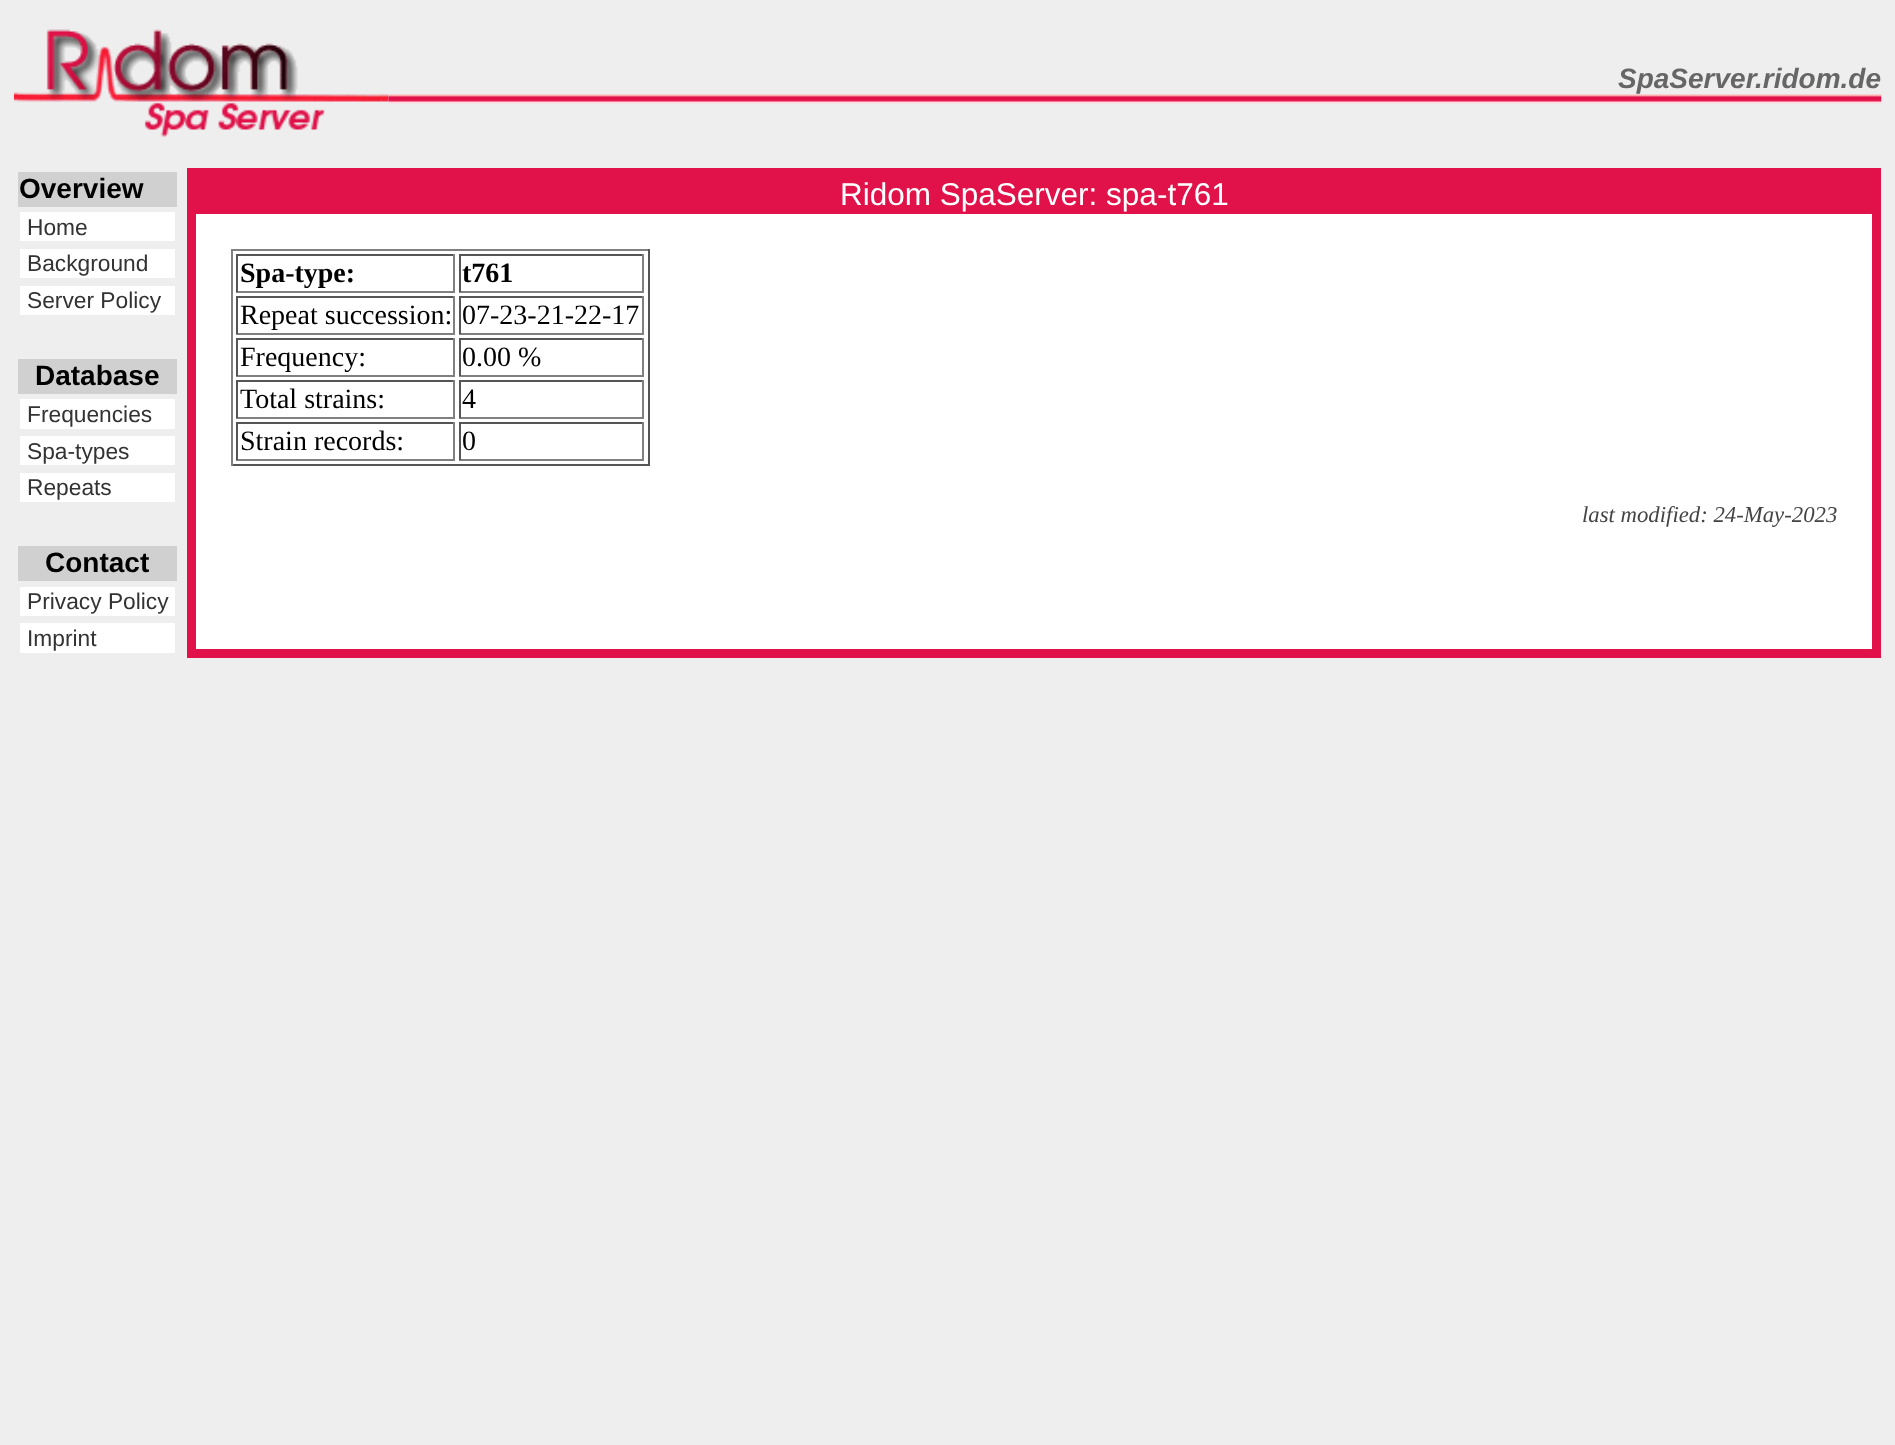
(async () => {
  const canvas = document.querySelector("canvas");
  canvas.width = 1895;
  canvas.height = 1445;
  const ctx = canvas.getContext("2d");
  ctx.miterLimit = 4;
  ctx.fontKerning = "normal";
  async function loadImage(src) {
    const img = new Image();
    img.src = src;
    await img.decode();
    return img;
  }

  ctx.fillStyle = "#eeeeee";
  ctx.fillRect(0, 0, 1895, 1445);
  ctx.drawImage(await loadImage("img/1.png"), 14, 29, 375, 108);
  ctx.drawImage(await loadImage("img/2.png"), 388, 94, 1494, 10);
  for (const [x, y, w, h, color] of [
    [18, 172, 159, 35, "#d0d0d0"],
    [20, 212, 155, 29, "#ffffff"],
    [20, 249, 155, 29, "#ffffff"],
    [20, 286, 155, 29, "#ffffff"],
    [18, 359, 159, 35, "#d0d0d0"],
    [20, 399, 155, 30, "#ffffff"],
    [20, 436, 155, 29, "#ffffff"],
    [20, 473, 155, 29, "#ffffff"],
    [18, 546, 159, 35, "#d0d0d0"],
    [20, 587, 155, 29, "#ffffff"],
    [20, 623, 155, 30, "#ffffff"],
    [196, 214, 1676, 435, "#ffffff"],
  ]) {
    ctx.fillStyle = color;
    ctx.fillRect(x, y, w, h);
  }
  ctx.strokeStyle = "#e11149";
  ctx.lineWidth = 9;
  ctx.strokeRect(191.5, 172.5, 1685, 481);
  for (const [x, y, w, h, color] of [
    [196, 177, 1676, 37, "#e11149"],
    [231, 249, 418, 2, "#808080"],
    [648, 249, 2, 217, "#555555"],
    [231, 464, 418, 2, "#555555"],
    [231, 249, 2, 217, "#808080"],
    [236, 254, 219, 2, "#555555"],
    [453, 254, 2, 38, "#808080"],
    [236, 291, 219, 2, "#808080"],
    [236, 254, 2, 38, "#555555"],
    [459, 254, 185, 2, "#555555"],
    [642, 254, 2, 38, "#808080"],
    [459, 291, 185, 2, "#808080"],
    [459, 254, 2, 38, "#555555"],
    [236, 296, 219, 2, "#555555"],
    [453, 296, 2, 38, "#808080"],
    [236, 333, 219, 2, "#808080"],
    [236, 296, 2, 38, "#555555"],
    [459, 296, 185, 2, "#555555"],
    [642, 296, 2, 38, "#808080"],
    [459, 333, 185, 2, "#808080"],
    [459, 296, 2, 38, "#555555"],
    [236, 338, 219, 2, "#555555"],
    [453, 338, 2, 38, "#808080"],
    [236, 375, 219, 2, "#808080"],
    [236, 338, 2, 38, "#555555"],
    [459, 338, 185, 2, "#555555"],
    [642, 338, 2, 38, "#808080"],
    [459, 375, 185, 2, "#808080"],
    [459, 338, 2, 38, "#555555"],
    [236, 380, 219, 2, "#555555"],
    [453, 380, 2, 38, "#808080"],
    [236, 417, 219, 2, "#808080"],
    [236, 380, 2, 38, "#555555"],
    [459, 380, 185, 2, "#555555"],
    [642, 380, 2, 38, "#808080"],
    [459, 417, 185, 2, "#808080"],
    [459, 380, 2, 38, "#555555"],
    [236, 422, 219, 2, "#555555"],
    [453, 422, 2, 38, "#808080"],
    [236, 459, 219, 2, "#808080"],
    [236, 422, 2, 38, "#555555"],
    [459, 422, 185, 2, "#555555"],
    [642, 422, 2, 38, "#808080"],
    [459, 459, 185, 2, "#808080"],
    [459, 422, 2, 38, "#555555"],
  ]) {
    ctx.fillStyle = color;
    ctx.fillRect(x, y, w, h);
  }
  ctx.font = "italic bold 28px Liberation Sans";
  ctx.fillStyle = "#666666";
  ctx.fillText("SpaServer.ridom.de", 1618, 88);
  ctx.font = "bold 28px Liberation Sans";
  ctx.fillStyle = "#000000";
  ctx.fillText("Overview", 19, 198);
  ctx.font = "22.75px Liberation Sans";
  ctx.fillStyle = "#333333";
  for (const [text, x, y] of [
    ["Home", 27, 235],
    ["Background", 27, 271],
    ["Server Policy", 27, 308],
  ]) {
    ctx.fillText(text, x, y);
  }
  ctx.font = "bold 28px Liberation Sans";
  ctx.fillStyle = "#000000";
  ctx.fillText("Database", 35, 385);
  ctx.font = "22.75px Liberation Sans";
  ctx.fillStyle = "#333333";
  for (const [text, x, y] of [
    ["Frequencies", 27, 422],
    ["Spa-types", 27, 459],
    ["Repeats", 27, 495],
  ]) {
    ctx.fillText(text, x, y);
  }
  ctx.font = "bold 28px Liberation Sans";
  ctx.fillStyle = "#000000";
  ctx.fillText("Contact", 45, 572);
  ctx.font = "22.75px Liberation Sans";
  ctx.fillStyle = "#333333";
  ctx.fillText("Privacy Policy", 27, 609);
  ctx.fillText("Imprint", 27, 646);
  ctx.font = "31.5px Liberation Sans";
  ctx.fillStyle = "#ffffff";
  ctx.fillText("Ridom SpaServer: spa-t761", 840, 205);
  ctx.font = "bold 28px Liberation Serif";
  ctx.fillStyle = "#000000";
  ctx.fillText("Spa-type:", 240, 282);
  ctx.fillText("t761", 462, 282);
  ctx.font = "28px Liberation Serif";
  for (const [text, x, y] of [
    ["Repeat succession:", 240, 324],
    ["07-23-21-22-17", 462, 324],
    ["Frequency:", 240, 366],
    ["0.00 %", 462, 366],
    ["Total strains:", 240, 408],
    ["4", 462, 408],
    ["Strain records:", 240, 450],
    ["0", 462, 450],
  ]) {
    ctx.fillText(text, x, y);
  }
  ctx.font = "italic 22.75px Liberation Serif";
  ctx.fillStyle = "#444444";
  ctx.fillText("last modified: 24-May-2023", 1582, 522);
})();
